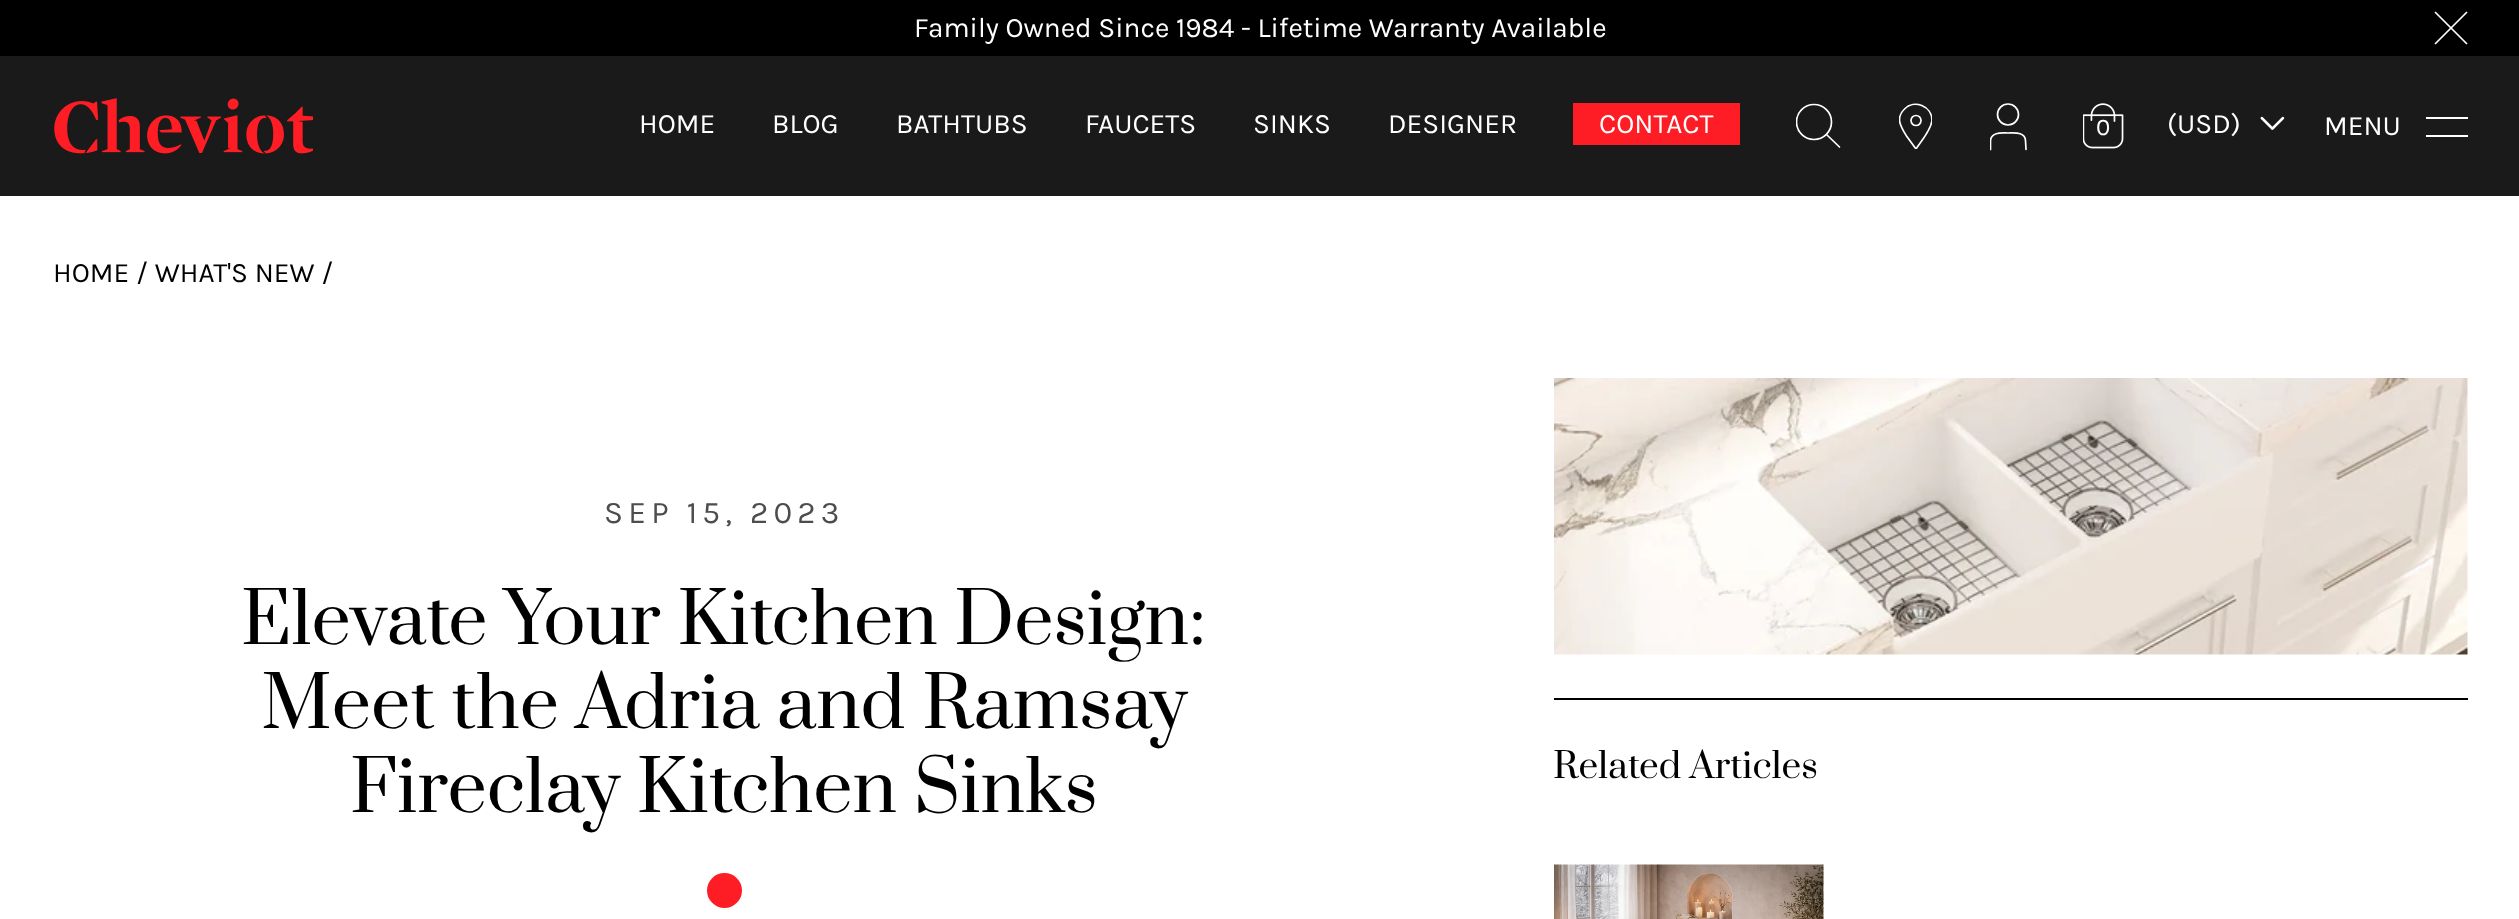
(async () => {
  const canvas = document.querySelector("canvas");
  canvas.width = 2519;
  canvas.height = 919;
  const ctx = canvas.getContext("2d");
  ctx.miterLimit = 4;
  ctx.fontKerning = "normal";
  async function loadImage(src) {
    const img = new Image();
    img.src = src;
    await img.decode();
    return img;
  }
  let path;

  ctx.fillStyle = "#ffffff";
  ctx.fillRect(0, 0, 2519, 919);
  ctx.fillStyle = "#000000";
  ctx.fillRect(0, 0, 2519, 56);
  path = new Path2D("M2435 12L2467 44M2467 12L2435 44");
  ctx.strokeStyle = "#ffffff";
  ctx.lineWidth = 1.7;
  ctx.stroke(path);
  ctx.fillStyle = "#1a1a1a";
  ctx.fillRect(0, 56, 2519, 140);
  ctx.drawImage(await loadImage("img/1.png"), 54, 98, 259, 56);
  ctx.fillStyle = "#ff1d25";
  ctx.fillRect(1573, 103, 167, 42);
  ctx.save();
  ctx.beginPath();
  ctx.rect(1796, 56, 45, 140);
  ctx.clip();
  ctx.beginPath();
  ctx.arc(1814, 122, 17.5, 0, Math.PI * 2);
  ctx.stroke();
  ctx.restore();
  path = new Path2D("M1827 135L1839.5 147");
  ctx.lineCap = "round";
  ctx.lineJoin = "round";
  ctx.stroke(path);
  ctx.save();
  ctx.beginPath();
  ctx.rect(1899, 103, 33, 46);
  ctx.clip();
  path = new Path2D("M1932 120.5C1932 106 1914 99 1904.5 109C1895 118 1901 127 1906.5 136L1916 149C1921 141.5 1931 130 1932 120.5Z");
  ctx.stroke(path);
  ctx.restore();
  ctx.beginPath();
  ctx.arc(2008, 114.5, 10.5, 0, Math.PI * 2);
  ctx.stroke();
  ctx.drawImage(await loadImage("img/2.png"), 2083, 103, 41, 46);
  ctx.drawImage(await loadImage("img/3.png"), 2260, 116, 25, 14);
  ctx.beginPath();
  ctx.arc(1916, 120.5, 5, 0, Math.PI * 2);
  ctx.stroke();
  ctx.save();
  ctx.beginPath();
  ctx.rect(1990, 103, 37, 48);
  ctx.clip();
  path = new Path2D("M1990.5 149.5V140.5C1991.5 131.5 2002 133 2008 133C2014.5 133 2025 131.5 2025.5 140.5L2026 149.5");
  ctx.stroke(path);
  ctx.restore();
  ctx.fillStyle = "#ffffff";
  ctx.fillRect(2426, 117, 42, 2);
  ctx.fillRect(2426, 135, 42, 2);
  ctx.fillStyle = "#ff1d25";
  ctx.beginPath();
  ctx.arc(724.5, 890.5, 17.5, 0, Math.PI * 2);
  ctx.fill();
  ctx.fillStyle = "#000000";
  ctx.fillRect(1554, 698, 914, 2);
  ctx.drawImage(await loadImage("img/4.png"), 1554, 378, 914, 277);
  ctx.drawImage(await loadImage("img/5.png"), 1554, 864, 270, 55);
  ctx.font = "28px Karla";
  ctx.fillStyle = "#ffffff";
  for (const [text, x, y] of [
    ["Family Owned Since 1984 - Lifetime Warranty Available", 914, 37],
    ["HOME", 639, 133],
    ["BLOG", 772, 133],
    ["BATHTUBS", 896, 133],
    ["FAUCETS", 1085, 133],
    ["SINKS", 1253, 133],
    ["DESIGNER", 1388, 133],
    ["CONTACT", 1599, 133],
    ["(USD)", 2167, 133],
  ]) {
    ctx.fillText(text, x, y);
  }
  ctx.font = "24px Karla";
  ctx.fillText("0", 2096, 135);
  ctx.font = "28px Karla";
  ctx.fillText("MENU", 2324, 135);
  ctx.fillStyle = "#000000";
  ctx.fillText("HOME / WHAT'S NEW /", 53, 282);
  ctx.letterSpacing = "5.25px";
  ctx.font = "31.5px Karla";
  ctx.fillStyle = "#4d4d4d";
  ctx.fillText("SEP 15, 2023", 604, 523);
  ctx.letterSpacing = "0px";
  ctx.font = "70px Prata";
  ctx.fillStyle = "#000000";
  for (const [text, x, y] of [
    ["Elevate Your Kitchen Design:", 241, 644],
    ["Meet the Adria and Ramsay", 261, 728],
    ["Fireclay Kitchen Sinks", 350, 812],
  ]) {
    ctx.fillText(text, x, y);
  }
  ctx.font = "35px Prata";
  ctx.fillText("Related Articles", 1553, 778);
})();
